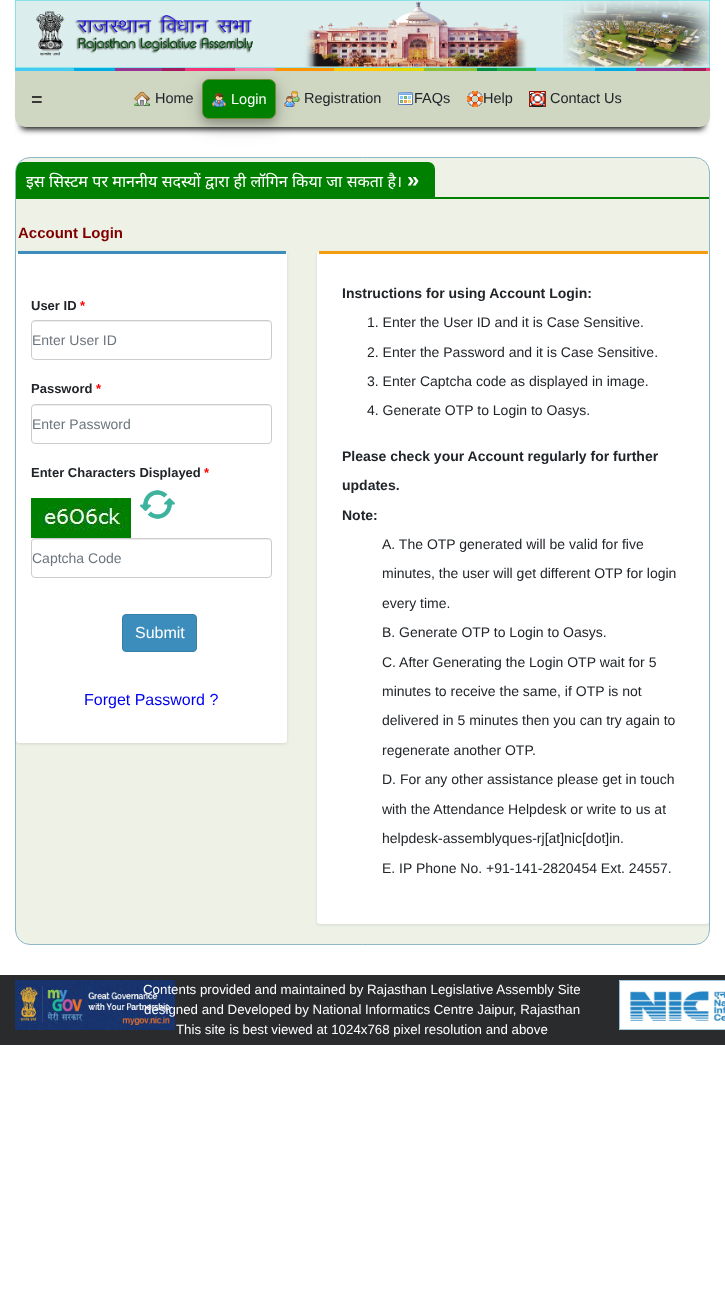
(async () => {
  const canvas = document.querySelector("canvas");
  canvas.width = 725;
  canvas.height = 1294;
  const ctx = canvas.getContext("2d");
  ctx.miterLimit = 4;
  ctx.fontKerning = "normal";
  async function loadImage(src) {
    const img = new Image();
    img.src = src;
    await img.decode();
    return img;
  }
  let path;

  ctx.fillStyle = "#ffffff";
  ctx.fillRect(0, 0, 725, 1294);
  ctx.drawImage(await loadImage("img/1.png"), 15, 0, 695, 68);
  ctx.drawImage(await loadImage("img/2.png"), 15, 68, 695, 3);
  ctx.fillStyle = "#000000";
  ctx.filter = "blur(3px)";
  ctx.beginPath();
  ctx.roundRect(21, 85, 683, 44, 4);
  ctx.fill();
  ctx.filter = "none";
  ctx.fillStyle = "#cfd6c2";
  ctx.beginPath();
  ctx.roundRect(15, 71, 695, 56, [0, 0, 10, 10]);
  ctx.fill();
  ctx.drawImage(await loadImage("img/3.png"), 134, 91, 16, 15);
  ctx.fillStyle = "rgba(0, 0, 0, 0.19)";
  ctx.filter = "blur(10px)";
  ctx.beginPath();
  ctx.roundRect(202, 85, 74, 40, 7);
  ctx.fill();
  ctx.filter = "none";
  ctx.fillStyle = "rgba(0, 0, 0, 0.2)";
  ctx.filter = "blur(4px)";
  ctx.beginPath();
  ctx.roundRect(202, 83, 74, 40, 7);
  ctx.fill();
  ctx.filter = "none";
  ctx.fillStyle = "#008000";
  ctx.beginPath();
  ctx.roundRect(202.5, 79.5, 73, 39, 6.5);
  ctx.fill();
  ctx.strokeStyle = "#6e8e35";
  ctx.stroke();
  ctx.drawImage(await loadImage("img/4.png"), 212, 93, 14, 14);
  ctx.drawImage(await loadImage("img/5.png"), 284, 91, 16, 16);
  ctx.drawImage(await loadImage("img/6.png"), 398, 92, 15, 13);
  ctx.drawImage(await loadImage("img/7.png"), 467, 91, 16, 16);
  ctx.drawImage(await loadImage("img/8.png"), 529, 91, 17, 16);
  ctx.fillStyle = "#edf1e6";
  ctx.beginPath();
  ctx.roundRect(15.5, 157.5, 694, 787, 14.5);
  ctx.fill();
  ctx.strokeStyle = "#8eb7c7";
  ctx.stroke();
  ctx.fillStyle = "#008000";
  ctx.fillRect(16, 197, 693, 2);
  ctx.save();
  ctx.beginPath();
  ctx.roundRect(16, 158, 693, 786, 14);
  ctx.clip();
  ctx.beginPath();
  ctx.roundRect(16, 162, 419, 35, [7, 7, 0, 0]);
  ctx.fill();
  ctx.restore();
  ctx.fillStyle = "rgba(0, 0, 0, 0.1)";
  ctx.filter = "blur(1.5px)";
  ctx.beginPath();
  ctx.roundRect(16, 252, 271, 492, 3);
  ctx.fill();
  ctx.filter = "none";
  ctx.fillStyle = "#ffffff";
  ctx.beginPath();
  ctx.roundRect(16, 251, 271, 492, 3);
  ctx.fill();
  ctx.fillStyle = "#3c8dbc";
  ctx.fillRect(18, 251, 268, 3);
  ctx.fillStyle = "#ececec";
  path = new Path2D("M35 322H269L271 323V325C271 323 270 321 268 321H35C33 321 32 323 32 325C32 323 33 322 35 322Z");
  ctx.fill(path);
  ctx.beginPath();
  ctx.roundRect(31.5, 320.5, 240, 39, 3.5);
  ctx.strokeStyle = "#cccccc";
  ctx.stroke();
  path = new Path2D("M35 406H269L271 407V409C271 407 270 405 268 405H35C33 405 32 407 32 409C32 407 33 406 35 406Z");
  ctx.fill(path);
  ctx.beginPath();
  ctx.roundRect(31.5, 404.5, 240, 39, 3.5);
  ctx.stroke();
  ctx.drawImage(await loadImage("img/9.png"), 31, 498, 100, 40);
  ctx.drawImage(await loadImage("img/10.png"), 140, 490, 35, 29);
  path = new Path2D("M35 540H269L271 541V543C271 541 270 539 268 539H35C33 539 32 541 32 543C32 541 33 540 35 540Z");
  ctx.fill(path);
  ctx.beginPath();
  ctx.roundRect(31.5, 538.5, 240, 39, 3.5);
  ctx.stroke();
  ctx.fillStyle = "#3c8dbc";
  ctx.beginPath();
  ctx.roundRect(122.5, 614.5, 74, 37, 3.5);
  ctx.fill();
  ctx.strokeStyle = "#367fa9";
  ctx.stroke();
  ctx.fillStyle = "rgba(0, 0, 0, 0.1)";
  ctx.filter = "blur(1.5px)";
  ctx.beginPath();
  ctx.roundRect(317, 252, 392, 673, 3);
  ctx.fill();
  ctx.filter = "none";
  ctx.fillStyle = "#ffffff";
  ctx.beginPath();
  ctx.roundRect(317, 251, 392, 673, 3);
  ctx.fill();
  ctx.fillStyle = "#f39c12";
  ctx.fillRect(319, 251, 389, 3);
  ctx.fillStyle = "#292b2c";
  ctx.fillRect(0, 975, 725, 70);
  ctx.drawImage(await loadImage("img/11.png"), 15, 980, 160, 50);
  ctx.drawImage(await loadImage("img/12.png"), 619, 980, 106, 50);
  ctx.font = "20px Liberation Sans";
  ctx.fillStyle = "#000000";
  ctx.fillText("=", 31, 106);
  ctx.font = "14.5px Liberation Sans";
  ctx.fillStyle = "#212529";
  ctx.fillText("Home", 155, 103);
  ctx.fillStyle = "#ffffff";
  ctx.fillText("Login", 231, 104);
  ctx.fillStyle = "#212529";
  for (const [text, x, y] of [
    ["Registration", 304, 103],
    ["FAQs", 414, 103],
    ["Help", 483, 103],
    ["Contact Us", 550, 103],
  ]) {
    ctx.fillText(text, x, y);
  }
  ctx.wordSpacing = "0.25px";
  ctx.font = "16px Noto Sans";
  ctx.fillStyle = "#ffffff";
  ctx.fillText("इस सिस्टम पर माननीय सदस्यों द्वारा ही लॉगिन किया जा सकता है।", 26, 187);
  ctx.wordSpacing = "0px";
  ctx.font = "bold 22px Liberation Sans";
  ctx.fillText("»", 407, 187);
  ctx.font = "bold 15px Liberation Sans";
  ctx.fillStyle = "#800000";
  ctx.fillText("Account Login", 18, 238);
  ctx.font = "bold 13px Liberation Sans";
  ctx.fillStyle = "#212529";
  ctx.fillText("User ID", 31, 310);
  ctx.fillStyle = "#ff0000";
  ctx.fillText("*", 80, 310);
  ctx.font = "14px Liberation Sans";
  ctx.fillStyle = "#6c757d";
  ctx.fillText("Enter User ID", 32, 345);
  ctx.font = "bold 13px Liberation Sans";
  ctx.fillStyle = "#212529";
  ctx.fillText("Password", 31, 393);
  ctx.fillStyle = "#ff0000";
  ctx.fillText("*", 96, 393);
  ctx.font = "14px Liberation Sans";
  ctx.fillStyle = "#6c757d";
  ctx.fillText("Enter Password", 32, 429);
  ctx.font = "bold 13px Liberation Sans";
  ctx.fillStyle = "#212529";
  ctx.fillText("Enter Characters Displayed", 31, 477);
  ctx.fillStyle = "#ff0000";
  ctx.fillText("*", 204, 477);
  ctx.font = "14px Liberation Sans";
  ctx.fillStyle = "#6c757d";
  ctx.fillText("Captcha Code", 32, 563);
  ctx.font = "16px Liberation Sans";
  ctx.fillStyle = "#ffffff";
  ctx.fillText("Submit", 135, 638);
  ctx.fillStyle = "#0000ee";
  ctx.fillText("Forget Password ?", 84, 705);
  ctx.font = "bold 14px Liberation Sans";
  ctx.fillStyle = "#212529";
  ctx.fillText("Instructions for using Account Login:", 342, 298);
  ctx.font = "14px Liberation Sans";
  for (const [text, x, y] of [
    ["1. Enter the User ID and it is Case Sensitive.", 367, 327],
    ["2. Enter the Password and it is Case Sensitive.", 367, 357],
    ["3. Enter Captcha code as displayed in image.", 367, 386],
    ["4. Generate OTP to Login to Oasys.", 367, 415],
  ]) {
    ctx.fillText(text, x, y);
  }
  ctx.font = "bold 14px Liberation Sans";
  for (const [text, x, y] of [
    ["Please check your Account regularly for further", 342, 461],
    ["updates.", 342, 490],
    ["Note:", 342, 520],
  ]) {
    ctx.fillText(text, x, y);
  }
  ctx.font = "14px Liberation Sans";
  for (const [text, x, y] of [
    ["A. The OTP generated will be valid for five", 382, 549],
    ["minutes, the user will get different OTP for login", 382, 578],
    ["every time.", 382, 608],
    ["B. Generate OTP to Login to Oasys.", 382, 637],
    ["C. After Generating the Login OTP wait for 5", 382, 667],
    ["minutes to receive the same, if OTP is not", 382, 696],
    ["delivered in 5 minutes then you can try again to", 382, 725],
    ["regenerate another OTP.", 382, 755],
    ["D. For any other assistance please get in touch", 382, 784],
    ["with the Attendance Helpdesk or write to us at", 382, 814],
    ["helpdesk-assemblyques-rj[at]nic[dot]in.", 382, 843],
    ["E. IP Phone No. +91-141-2820454 Ext. 24557.", 382, 873],
  ]) {
    ctx.fillText(text, x, y);
  }
  ctx.font = "13.3px Liberation Sans";
  ctx.fillStyle = "#ffffff";
  for (const [text, x, y] of [
    ["Contents provided and maintained by Rajasthan Legislative Assembly Site", 143, 994],
    ["designed and Developed by National Informatics Centre Jaipur, Rajasthan", 144, 1014],
    ["This site is best viewed at 1024x768 pixel resolution and above", 176, 1034],
  ]) {
    ctx.fillText(text, x, y);
  }
})();
